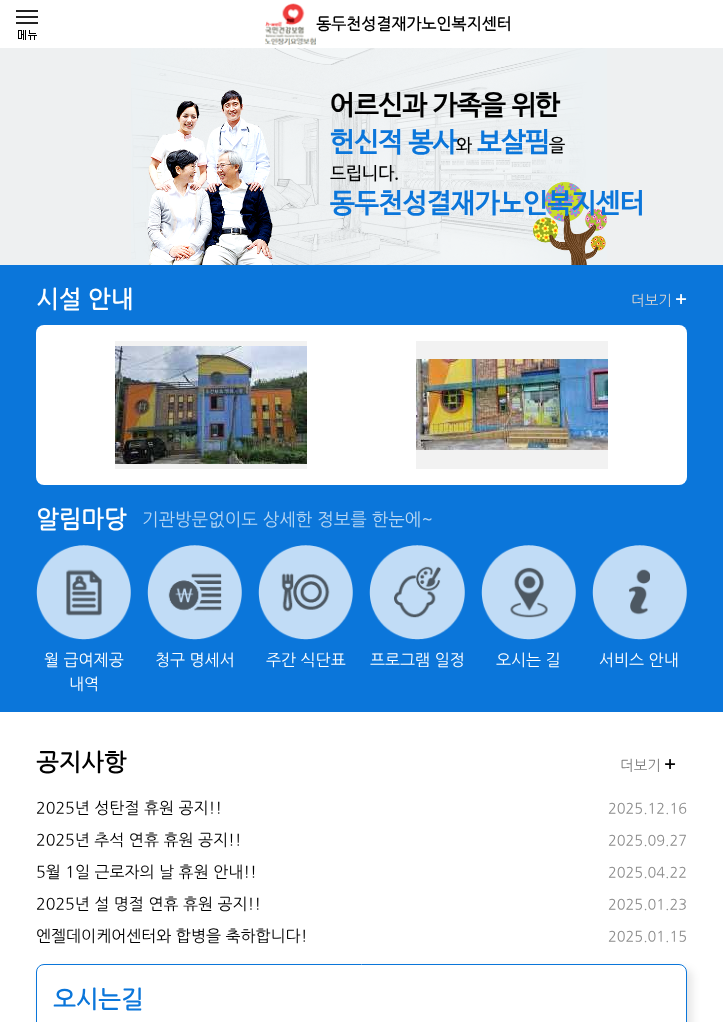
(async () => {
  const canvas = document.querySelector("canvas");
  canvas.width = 723;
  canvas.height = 1022;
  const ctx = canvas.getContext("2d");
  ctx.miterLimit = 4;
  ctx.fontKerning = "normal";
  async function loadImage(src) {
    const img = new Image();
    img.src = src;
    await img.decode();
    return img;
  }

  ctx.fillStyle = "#ffffff";
  ctx.fillRect(0, 0, 723, 1022);
  ctx.drawImage(await loadImage("img/1.png"), 16, 10, 22, 30);
  ctx.drawImage(await loadImage("img/2.png"), 265, 3, 51, 42);
  ctx.fillStyle = "#eef0f1";
  ctx.fillRect(0, 48, 723, 217);
  ctx.drawImage(await loadImage("img/3.png"), 131, 48, 476, 217);
  ctx.drawImage(await loadImage("img/4.png"), 147, 90, 126, 175);
  ctx.fillStyle = "#0b76da";
  ctx.fillRect(0, 265, 723, 447);
  ctx.fillStyle = "#ffffff";
  ctx.beginPath();
  ctx.roundRect(36, 325, 651, 160, 8);
  ctx.fill();
  ctx.fillStyle = "#f2f2f2";
  ctx.fillRect(115, 341, 192, 128);
  ctx.drawImage(await loadImage("img/5.png"), 115, 346, 192, 118);
  ctx.fillRect(416, 341, 192, 128);
  ctx.drawImage(await loadImage("img/6.png"), 416, 359, 192, 91);
  ctx.drawImage(await loadImage("img/7.png"), 36, 545, 95, 95);
  ctx.drawImage(await loadImage("img/8.png"), 147, 545, 95, 95);
  ctx.drawImage(await loadImage("img/9.png"), 258, 545, 95, 95);
  ctx.drawImage(await loadImage("img/10.png"), 369, 545, 96, 95);
  ctx.drawImage(await loadImage("img/11.png"), 481, 545, 95, 95);
  ctx.drawImage(await loadImage("img/12.png"), 592, 545, 95, 95);
  ctx.fillStyle = "rgba(0, 0, 0, 0.1)";
  ctx.filter = "blur(4px)";
  ctx.beginPath();
  ctx.roundRect(41, 969, 651, 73, 8);
  ctx.fill();
  ctx.filter = "none";
  ctx.fillStyle = "#ffffff";
  ctx.beginPath();
  ctx.roundRect(36, 964, 651, 58, [8, 8, 0, 0]);
  ctx.fill();
  ctx.beginPath();
  ctx.roundRect(36.5, 964.5, 650, 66, 7.5);
  ctx.strokeStyle = "#0b76da";
  ctx.stroke();
  ctx.font = "bold 16px NanumGothic";
  ctx.fillStyle = "#000000";
  ctx.fillText("동두천성결재가노인복지센터", 316, 29);
  ctx.font = "bold 27.1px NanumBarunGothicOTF";
  ctx.fillText("어르신과 가족을 위한", 330, 114);
  ctx.fillStyle = "#0b76da";
  ctx.fillText("헌신적 봉사", 330, 151);
  ctx.font = "18px NanumBarunGothicOTF";
  ctx.fillStyle = "#000000";
  ctx.fillText("와", 456, 151);
  ctx.font = "bold 27.1px NanumBarunGothicOTF";
  ctx.fillStyle = "#0b76da";
  ctx.fillText("보살핌", 477, 151);
  ctx.font = "18px NanumBarunGothicOTF";
  ctx.fillStyle = "#000000";
  ctx.fillText("을", 549, 151);
  ctx.fillText("드립니다.", 330, 179);
  ctx.font = "bold 27.1px NanumBarunGothicOTF";
  ctx.fillStyle = "#0b76da";
  ctx.fillText("동두천성결재가노인복지센터", 330, 212);
  ctx.font = "bold 24px NanumGothic";
  ctx.fillStyle = "#ffffff";
  ctx.fillText("시설 안내", 36, 307);
  ctx.font = "14.5px NanumGothic";
  ctx.fillStyle = "#d3d3d3";
  ctx.fillText("더보기", 631, 305);
  ctx.font = "bold 17.6px NanumGothic";
  ctx.fillStyle = "#ffffff";
  ctx.fillText("+", 675, 305);
  ctx.font = "bold 24px NanumGothic";
  ctx.fillText("알림마당", 36, 527);
  ctx.font = "17.6px NanumGothic";
  ctx.fillStyle = "#b6d6f4";
  ctx.fillText("기관방문없이도 상세한 정보를 한눈에~", 142, 525);
  ctx.font = "16px NanumGothic";
  ctx.fillStyle = "#ffffff";
  for (const [text, x, y] of [
    ["월 급여제공", 44, 665],
    ["내역", 69, 689],
    ["청구 명세서", 155, 665],
    ["주간 식단표", 266, 665],
    ["프로그램 일정", 370, 665],
    ["오시는 길", 496, 665],
    ["서비스 안내", 599, 665],
  ]) {
    ctx.fillText(text, x, y);
  }
  ctx.font = "bold 24px NanumGothic";
  ctx.fillStyle = "#000000";
  ctx.fillText("공지사항", 36, 770);
  ctx.font = "14.5px NanumGothic";
  ctx.fillStyle = "#7f7f7f";
  ctx.fillText("더보기", 620, 770);
  ctx.font = "bold 17.6px NanumGothic";
  ctx.fillStyle = "#000000";
  ctx.fillText("+", 664, 770);
  ctx.font = "16px NanumGothic";
  ctx.fillText("2025년 성탄절 휴원 공지!!", 36, 813);
  ctx.font = "14.5px NanumGothic";
  ctx.fillStyle = "#8c8c8c";
  ctx.fillText("2025.12.16", 608, 813);
  ctx.font = "16px NanumGothic";
  ctx.fillStyle = "#000000";
  ctx.fillText("2025년 추석 연휴 휴원 공지!!", 36, 845);
  ctx.font = "14.5px NanumGothic";
  ctx.fillStyle = "#8c8c8c";
  ctx.fillText("2025.09.27", 608, 845);
  ctx.font = "16px NanumGothic";
  ctx.fillStyle = "#000000";
  ctx.fillText("5월 1일 근로자의 날 휴원 안내!!", 36, 877);
  ctx.font = "14.5px NanumGothic";
  ctx.fillStyle = "#8c8c8c";
  ctx.fillText("2025.04.22", 608, 877);
  ctx.font = "16px NanumGothic";
  ctx.fillStyle = "#000000";
  ctx.fillText("2025년 설 명절 연휴 휴원 공지!!", 36, 909);
  ctx.font = "14.5px NanumGothic";
  ctx.fillStyle = "#8c8c8c";
  ctx.fillText("2025.01.23", 608, 909);
  ctx.font = "16px NanumGothic";
  ctx.fillStyle = "#000000";
  ctx.fillText("엔젤데이케어센터와 합병을 축하합니다!", 36, 941);
  ctx.font = "14.5px NanumGothic";
  ctx.fillStyle = "#8c8c8c";
  ctx.fillText("2025.01.15", 608, 941);
  ctx.font = "bold 24px NanumGothic";
  ctx.fillStyle = "#0b76da";
  ctx.fillText("오시는길", 53, 1007);
})();
